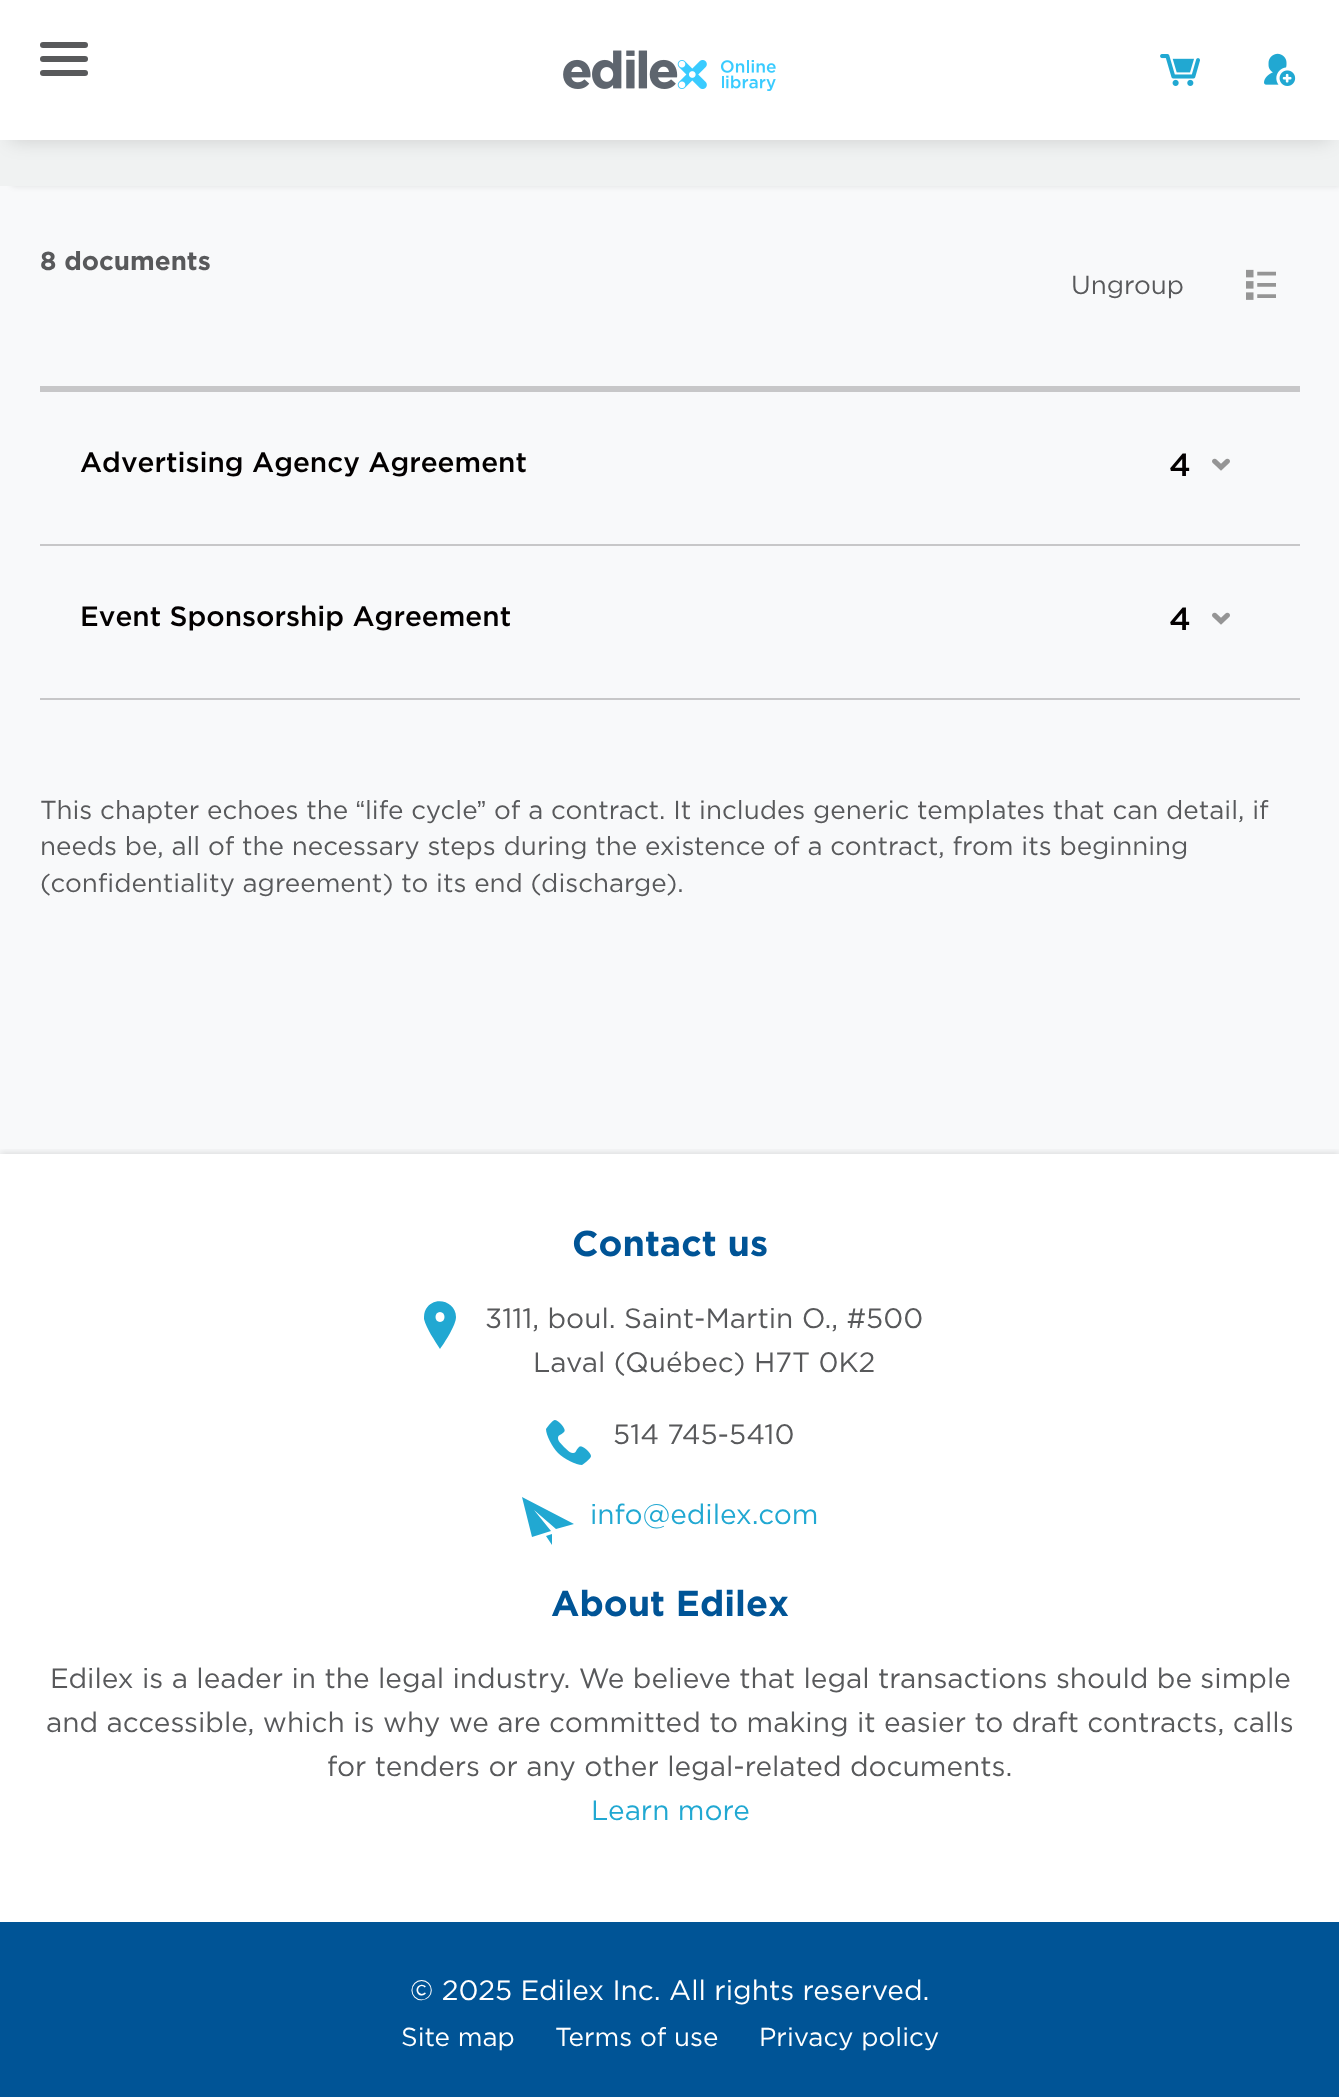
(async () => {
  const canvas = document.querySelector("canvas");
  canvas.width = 1339;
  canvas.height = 2097;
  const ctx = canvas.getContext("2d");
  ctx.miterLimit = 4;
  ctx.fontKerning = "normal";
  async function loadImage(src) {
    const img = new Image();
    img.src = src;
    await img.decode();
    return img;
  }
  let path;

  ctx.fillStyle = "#ffffff";
  ctx.fillRect(0, 0, 1339, 2097);
  ctx.fillStyle = "#f8f9fa";
  ctx.fillRect(0, 186, 1339, 968);
  ctx.fillStyle = "rgba(0, 0, 0, 0.1)";
  ctx.filter = "blur(3px)";
  ctx.beginPath();
  ctx.rect(12, -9, 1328, 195);
  ctx.fill();
  ctx.filter = "none";
  ctx.fillStyle = "#f0f2f2";
  ctx.fillRect(0, 140, 1339, 46);
  ctx.fillStyle = "rgba(0, 0, 0, 0.15)";
  ctx.filter = "blur(10px)";
  ctx.beginPath();
  ctx.rect(10, 20, 1320, 120);
  ctx.fill();
  ctx.filter = "none";
  ctx.fillStyle = "#ffffff";
  ctx.fillRect(0, 0, 1339, 140);
  ctx.fillStyle = "#58595b";
  ctx.beginPath();
  ctx.roundRect(40, 56, 48, 6, 3);
  ctx.fill();
  ctx.beginPath();
  ctx.roundRect(40, 42, 48, 6, 3);
  ctx.fill();
  ctx.beginPath();
  ctx.roundRect(40, 70, 48, 6, 3);
  ctx.fill();
  ctx.drawImage(await loadImage("img/1.png"), 563, 50, 213, 41);
  ctx.drawImage(await loadImage("img/2.png"), 1160, 54, 40, 32);
  ctx.drawImage(await loadImage("img/3.png"), 1264, 53, 32, 33);
  ctx.fillStyle = "#c7c7c8";
  ctx.fillRect(40, 386, 1260, 6);
  ctx.drawImage(await loadImage("img/4.png"), 1246, 269, 30, 31);
  ctx.fillRect(40, 544, 1260, 2);
  ctx.drawImage(await loadImage("img/5.png"), 1212, 458, 18, 13);
  ctx.fillRect(40, 698, 1260, 2);
  ctx.drawImage(await loadImage("img/5.png"), 1212, 612, 18, 13);
  ctx.save();
  ctx.beginPath();
  ctx.rect(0, 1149, 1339, 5);
  ctx.clip();
  ctx.fillStyle = "rgba(0, 0, 0, 0.1)";
  ctx.filter = "blur(3px)";
  ctx.beginPath();
  ctx.rect(0, 1152, 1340, 944);
  ctx.fill();
  ctx.filter = "none";
  ctx.restore();
  ctx.fillStyle = "#21a8d2";
  path = new Path2D("M456 1317C456 1301 434 1295 426 1309C424 1312 424 1316 424 1319C426 1328 435 1341 440 1349C445 1342 456 1325 456 1317ZM440 1312C446 1312 446 1322 440 1322C434 1322 434 1312 440 1312Z");
  ctx.fill(path);
  ctx.drawImage(await loadImage("img/6.png"), 546, 1420, 45, 45);
  path = new Path2D("M556 1529L534 1510L551 1531L532 1537L522 1497L574 1524ZM552 1545L546 1536L552 1534Z");
  ctx.fill(path);
  ctx.fillStyle = "#005496";
  ctx.fillRect(0, 1922, 1339, 175);
  ctx.font = "bold 26px Gotham";
  ctx.fillStyle = "#58595b";
  ctx.fillText("8 documents", 40, 270);
  ctx.font = "26px Gotham";
  ctx.fillText("Ungroup", 1071, 294);
  ctx.font = "500 28px Gotham";
  ctx.fillStyle = "#030000";
  ctx.fillText("Advertising Agency Agreement", 80, 472);
  ctx.font = "500 32px Gotham";
  ctx.fillText("4", 1169, 476);
  ctx.font = "500 28px Gotham";
  ctx.fillText("Event Sponsorship Agreement", 80, 626);
  ctx.font = "500 32px Gotham";
  ctx.fillText("4", 1169, 630);
  ctx.font = "26px Gotham";
  ctx.fillStyle = "#58595b";
  ctx.fillText("This chapter echoes the", 40, 819);
  ctx.font = "26px Liberation Sans";
  ctx.fillText("“", 356, 819);
  ctx.font = "26px Gotham";
  ctx.fillText("life cycle", 365, 819);
  ctx.font = "26px Liberation Sans";
  ctx.fillText("”", 477, 819);
  ctx.font = "26px Gotham";
  for (const [text, x, y] of [
    ["of a contract. It includes generic templates that can detail, if", 494, 819],
    ["needs be, all of the necessary steps during the existence of a contract, from its beginning", 40, 855],
    ["(confidentiality agreement) to its end (discharge).", 40, 892],
  ]) {
    ctx.fillText(text, x, y);
  }
  ctx.font = "bold 36px Gotham";
  ctx.fillStyle = "#005496";
  ctx.fillText("Contact us", 572, 1256);
  ctx.font = "28px Gotham";
  ctx.fillStyle = "#58595b";
  for (const [text, x, y] of [
    ["3111, boul. Saint-Martin O., #500", 485, 1328],
    ["Laval (Québec) H7T 0K2", 533, 1372],
    ["514 745-5410", 613, 1444],
  ]) {
    ctx.fillText(text, x, y);
  }
  ctx.fillStyle = "#21a8d2";
  ctx.fillText("info@edilex.com", 590, 1524);
  ctx.font = "bold 36px Gotham";
  ctx.fillStyle = "#005496";
  ctx.fillText("About Edilex", 551, 1616);
  ctx.font = "28px Gotham";
  ctx.fillStyle = "#58595b";
  for (const [text, x, y] of [
    ["Edilex is a leader in the legal industry. We believe that legal transactions should be simple", 50, 1688],
    ["and accessible, which is why we are committed to making it easier to draft contracts, calls", 46, 1732],
    ["for tenders or any other legal-related documents.", 327, 1776],
  ]) {
    ctx.fillText(text, x, y);
  }
  ctx.fillStyle = "#21a8d2";
  ctx.fillText("Learn more", 591, 1820);
  ctx.fillStyle = "#ffffff";
  ctx.fillText("© 2025 Edilex Inc. All rights reserved.", 410, 2000);
  ctx.font = "26px Gotham";
  for (const [text, x, y] of [
    ["Site map", 401, 2046],
    ["Terms of use", 555, 2046],
    ["Privacy policy", 759, 2046],
  ]) {
    ctx.fillText(text, x, y);
  }
})();
